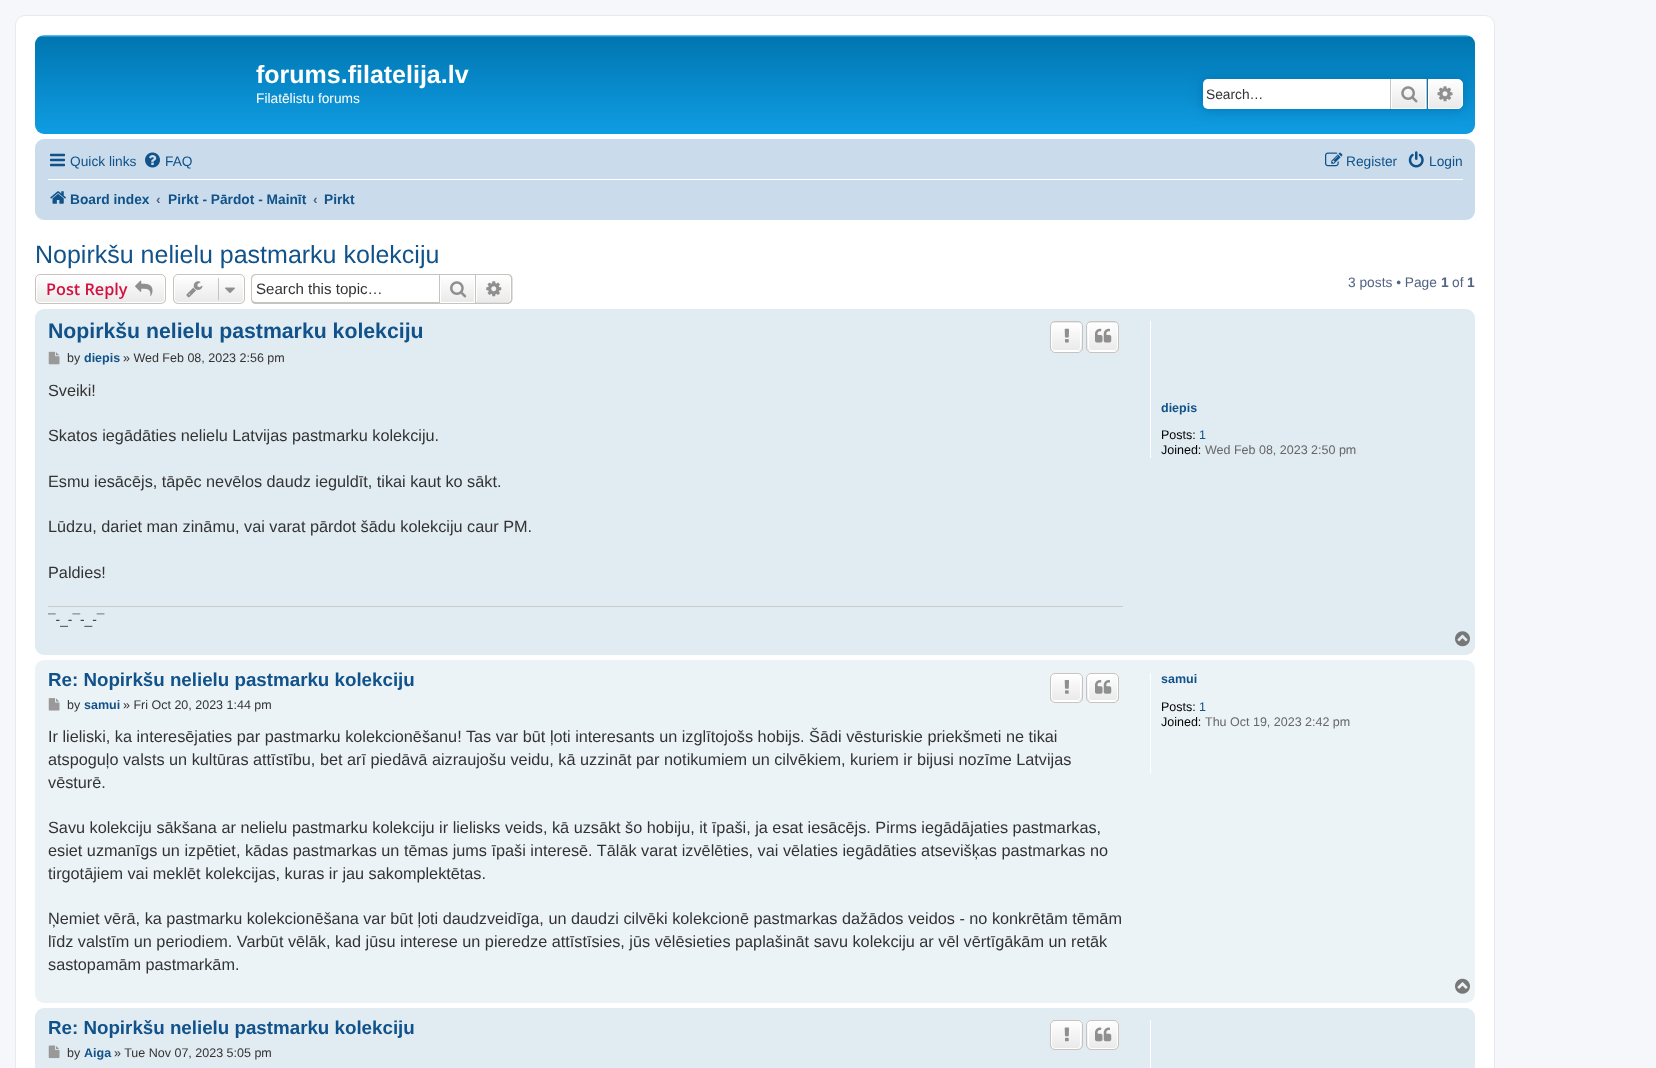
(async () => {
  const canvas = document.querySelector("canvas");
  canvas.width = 1656;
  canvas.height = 1068;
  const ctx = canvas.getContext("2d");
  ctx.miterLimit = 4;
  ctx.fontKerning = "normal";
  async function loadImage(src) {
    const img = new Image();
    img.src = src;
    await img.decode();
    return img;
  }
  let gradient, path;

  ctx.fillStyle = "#f5f7fa";
  ctx.fillRect(0, 0, 1656, 1068);
  ctx.fillStyle = "#ffffff";
  ctx.beginPath();
  ctx.roundRect(15.5, 15.5, 1479, 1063, 9.5);
  ctx.fill();
  ctx.strokeStyle = "#e6e9ed";
  ctx.stroke();
  gradient = ctx.createLinearGradient(755, 35, 755, 150);
  gradient.addColorStop(0, "#6aceff");
  gradient.addColorStop(0.02, "#0076b1");
  gradient.addColorStop(1, "#12a3eb");
  ctx.fillStyle = gradient;
  ctx.beginPath();
  ctx.roundRect(35, 35, 1440, 99, 9);
  ctx.fill();
  ctx.fillStyle = "#0075b0";
  ctx.filter = "blur(6px)";
  ctx.beginPath();
  ctx.roundRect(1203, 79, 260, 30, 5);
  ctx.fill();
  ctx.filter = "none";
  ctx.fillStyle = "#ffffff";
  ctx.beginPath();
  ctx.roundRect(1203, 79, 187, 30, [5, 0, 0, 5]);
  ctx.fill();
  gradient = ctx.createLinearGradient(1409, 79, 1409, 109);
  gradient.addColorStop(0, "#ffffff");
  gradient.addColorStop(1, "#e9e9e9");
  ctx.fillStyle = gradient;
  ctx.fillRect(1392, 80, 33, 28);
  ctx.strokeStyle = "#ffffff";
  ctx.strokeRect(1391.5, 79.5, 34, 29);
  ctx.fillStyle = "#c7c3bf";
  ctx.fillRect(1426, 79, 1, 30);
  ctx.fillRect(1390, 79, 1, 30);
  ctx.drawImage(await loadImage("img/1.png"), 1401, 86, 17, 17);
  gradient = ctx.createLinearGradient(1445, 79, 1445, 109);
  gradient.addColorStop(0, "#ffffff");
  gradient.addColorStop(1, "#e9e9e9");
  ctx.fillStyle = gradient;
  ctx.beginPath();
  ctx.roundRect(1428.5, 79.5, 34, 29, [0, 4.5, 4.5, 0]);
  ctx.fill();
  ctx.stroke();
  ctx.drawImage(await loadImage("img/2.png"), 1437, 86, 16, 16);
  ctx.fillStyle = "#cadceb";
  ctx.beginPath();
  ctx.roundRect(35, 139, 1440, 81, 9);
  ctx.fill();
  ctx.drawImage(await loadImage("img/3.png"), 50, 153, 15, 14);
  ctx.drawImage(await loadImage("img/4.png"), 145, 152, 15, 16);
  ctx.drawImage(await loadImage("img/5.png"), 1325, 152, 18, 15);
  ctx.drawImage(await loadImage("img/6.png"), 1408, 151, 16, 17);
  ctx.fillStyle = "#ffffff";
  ctx.fillRect(48, 179, 1415, 1);
  ctx.drawImage(await loadImage("img/7.png"), 50, 191, 16, 13);
  ctx.save();
  ctx.beginPath();
  ctx.roundRect(35, 274, 131, 30, 5);
  ctx.clip();
  gradient = ctx.createLinearGradient(101, 275, 101, 303);
  gradient.addColorStop(0, "#ffffff");
  gradient.addColorStop(1, "#e9e9e9");
  ctx.fillStyle = gradient;
  ctx.fillRect(35, 275, 131, 28);
  ctx.restore();
  ctx.beginPath();
  ctx.roundRect(36.5, 275.5, 128, 27, 3.5);
  ctx.stroke();
  ctx.beginPath();
  ctx.roundRect(35.5, 274.5, 130, 29, 4.5);
  ctx.strokeStyle = "#c7c3bf";
  ctx.stroke();
  ctx.drawImage(await loadImage("img/8.png"), 135, 280, 18, 17);
  ctx.save();
  ctx.beginPath();
  ctx.roundRect(173, 274, 72, 30, 5);
  ctx.clip();
  gradient = ctx.createLinearGradient(209, 275, 209, 303);
  gradient.addColorStop(0, "#ffffff");
  gradient.addColorStop(1, "#e9e9e9");
  ctx.fillStyle = gradient;
  ctx.fillRect(173, 275, 72, 28);
  ctx.restore();
  ctx.beginPath();
  ctx.roundRect(174.5, 275.5, 69, 27, 3.5);
  ctx.strokeStyle = "#ffffff";
  ctx.stroke();
  ctx.beginPath();
  ctx.roundRect(173.5, 274.5, 71, 29, 4.5);
  ctx.strokeStyle = "#c7c3bf";
  ctx.stroke();
  ctx.drawImage(await loadImage("img/9.png"), 186, 281, 17, 17);
  ctx.fillStyle = "#c7c3bf";
  ctx.fillRect(218, 278, 1, 22);
  ctx.drawImage(await loadImage("img/10.png"), 225, 287, 10, 6);
  path = new Path2D("M256 274H439V304H256C253 304 251 302 251 299V279C251 276 253 274 256 274ZM256 275H439V302H256C254 302 252 301 252 299V279C252 277 254 275 256 275Z");
  ctx.fill(path, "evenodd");
  gradient = ctx.createLinearGradient(458, 275, 458, 303);
  gradient.addColorStop(0, "#ffffff");
  gradient.addColorStop(1, "#e9e9e9");
  ctx.fillStyle = gradient;
  ctx.fillRect(441, 278, 33, 24);
  ctx.strokeRect(439.5, 274.5, 36, 29);
  ctx.drawImage(await loadImage("img/11.png"), 450, 281, 17, 17);
  gradient = ctx.createLinearGradient(494, 275, 494, 303);
  gradient.addColorStop(0, "#ffffff");
  gradient.addColorStop(1, "#e9e9e9");
  ctx.fillStyle = gradient;
  ctx.beginPath();
  ctx.roundRect(476.5, 275.5, 34, 27, [0, 3.5, 3.5, 0]);
  ctx.fill();
  ctx.strokeStyle = "#ffffff";
  ctx.stroke();
  ctx.fillStyle = "#c7c3bf";
  path = new Path2D("M476 274H507.5C510.5 274 512.5 276 512.5 279V299C512.5 301.5 510.5 304 507.5 304H476ZM476 275H507.5C509.5 275 511 276.5 511 279V299C511 301 509.5 302.5 507.5 302.5H476Z");
  ctx.fill(path, "evenodd");
  ctx.drawImage(await loadImage("img/12.png"), 486, 281, 16, 16);
  ctx.fillStyle = "#e1ebf2";
  ctx.beginPath();
  ctx.roundRect(35, 309, 1440, 346, 9);
  ctx.fill();
  ctx.save();
  ctx.beginPath();
  ctx.roundRect(1050, 321, 33, 32, 5);
  ctx.clip();
  gradient = ctx.createLinearGradient(1066, 294, 1066, 323);
  gradient.addColorStop(0, "#ffffff");
  gradient.addColorStop(1, "#e9e9e9");
  ctx.fillStyle = gradient;
  ctx.fillRect(1050, 321, 33, 2);
  gradient = ctx.createLinearGradient(1066, 323, 1066, 351);
  gradient.addColorStop(0, "#ffffff");
  gradient.addColorStop(1, "#e9e9e9");
  ctx.fillStyle = gradient;
  ctx.fillRect(1050, 323, 33, 28);
  gradient = ctx.createLinearGradient(1066, 351, 1066, 380);
  gradient.addColorStop(0, "#ffffff");
  gradient.addColorStop(1, "#e9e9e9");
  ctx.fillStyle = gradient;
  ctx.fillRect(1050, 351, 33, 2);
  ctx.restore();
  ctx.beginPath();
  ctx.roundRect(1051.5, 323.5, 29, 27, 3.5);
  ctx.stroke();
  ctx.beginPath();
  ctx.roundRect(1050.5, 321.5, 32, 31, 4.5);
  ctx.strokeStyle = "#c7c3bf";
  ctx.stroke();
  ctx.drawImage(await loadImage("img/13.png"), 1064, 328, 5, 15);
  ctx.save();
  ctx.beginPath();
  ctx.roundRect(1086, 321, 33, 32, 5);
  ctx.clip();
  gradient = ctx.createLinearGradient(1103, 294, 1103, 323);
  gradient.addColorStop(0, "#ffffff");
  gradient.addColorStop(1, "#e9e9e9");
  ctx.fillStyle = gradient;
  ctx.fillRect(1086, 321, 33, 2);
  gradient = ctx.createLinearGradient(1103, 323, 1103, 351);
  gradient.addColorStop(0, "#ffffff");
  gradient.addColorStop(1, "#e9e9e9");
  ctx.fillStyle = gradient;
  ctx.fillRect(1086, 323, 33, 28);
  gradient = ctx.createLinearGradient(1103, 351, 1103, 380);
  gradient.addColorStop(0, "#ffffff");
  gradient.addColorStop(1, "#e9e9e9");
  ctx.fillStyle = gradient;
  ctx.fillRect(1086, 351, 33, 2);
  ctx.restore();
  ctx.beginPath();
  ctx.roundRect(1088.5, 323.5, 29, 27, 3.5);
  ctx.strokeStyle = "#ffffff";
  ctx.stroke();
  ctx.beginPath();
  ctx.roundRect(1086.5, 321.5, 32, 31, 4.5);
  ctx.strokeStyle = "#c7c3bf";
  ctx.stroke();
  ctx.drawImage(await loadImage("img/14.png"), 1095, 328, 17, 15);
  ctx.drawImage(await loadImage("img/15.png"), 48, 351, 12, 14);
  ctx.fillStyle = "#cccccc";
  ctx.fillRect(48, 606, 1075, 1);
  ctx.fillStyle = "#ffffff";
  ctx.fillRect(1150, 321, 1, 137);
  ctx.drawImage(await loadImage("img/16.png"), 1455, 631, 15, 16);
  ctx.fillStyle = "#ecf3f7";
  ctx.beginPath();
  ctx.roundRect(35, 660, 1440, 343, 9);
  ctx.fill();
  ctx.save();
  ctx.beginPath();
  ctx.roundRect(1050, 673, 33, 30, 5);
  ctx.clip();
  gradient = ctx.createLinearGradient(1066, 674, 1066, 701);
  gradient.addColorStop(0, "#ffffff");
  gradient.addColorStop(1, "#e9e9e9");
  ctx.fillStyle = gradient;
  ctx.fillRect(1050, 674, 33, 27);
  gradient = ctx.createLinearGradient(1066, 701, 1066, 729);
  gradient.addColorStop(0, "#ffffff");
  gradient.addColorStop(1, "#e9e9e9");
  ctx.fillStyle = gradient;
  ctx.fillRect(1050, 701, 33, 2);
  ctx.restore();
  ctx.beginPath();
  ctx.roundRect(1051.5, 674.5, 29, 26, 3.5);
  ctx.strokeStyle = "#ffffff";
  ctx.stroke();
  ctx.beginPath();
  ctx.roundRect(1050.5, 673.5, 32, 29, 4.5);
  ctx.strokeStyle = "#c7c3bf";
  ctx.stroke();
  ctx.drawImage(await loadImage("img/17.png"), 1064, 680, 5, 14);
  ctx.save();
  ctx.beginPath();
  ctx.roundRect(1086, 673, 33, 30, 5);
  ctx.clip();
  gradient = ctx.createLinearGradient(1103, 674, 1103, 701);
  gradient.addColorStop(0, "#ffffff");
  gradient.addColorStop(1, "#e9e9e9");
  ctx.fillStyle = gradient;
  ctx.fillRect(1086, 674, 33, 27);
  gradient = ctx.createLinearGradient(1103, 701, 1103, 729);
  gradient.addColorStop(0, "#ffffff");
  gradient.addColorStop(1, "#e9e9e9");
  ctx.fillStyle = gradient;
  ctx.fillRect(1086, 701, 33, 2);
  ctx.restore();
  ctx.beginPath();
  ctx.roundRect(1088.5, 674.5, 29, 26, 3.5);
  ctx.strokeStyle = "#ffffff";
  ctx.stroke();
  ctx.beginPath();
  ctx.roundRect(1086.5, 673.5, 32, 29, 4.5);
  ctx.strokeStyle = "#c7c3bf";
  ctx.stroke();
  ctx.drawImage(await loadImage("img/18.png"), 1095, 680, 17, 14);
  ctx.drawImage(await loadImage("img/19.png"), 48, 698, 12, 13);
  ctx.fillStyle = "#ffffff";
  ctx.fillRect(1150, 673, 1, 100);
  ctx.drawImage(await loadImage("img/20.png"), 1455, 978, 15, 16);
  ctx.fillStyle = "#e1ebf2";
  ctx.beginPath();
  ctx.roundRect(35, 1008, 1440, 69, 9);
  ctx.fill();
  ctx.save();
  ctx.beginPath();
  ctx.roundRect(1050, 1020, 33, 30, 5);
  ctx.clip();
  gradient = ctx.createLinearGradient(1066, 1021, 1066, 1049);
  gradient.addColorStop(0, "#ffffff");
  gradient.addColorStop(1, "#e9e9e9");
  ctx.fillStyle = gradient;
  ctx.fillRect(1050, 1021, 33, 28);
  ctx.restore();
  ctx.beginPath();
  ctx.roundRect(1051.5, 1021.5, 29, 27, 3.5);
  ctx.strokeStyle = "#ffffff";
  ctx.stroke();
  ctx.beginPath();
  ctx.roundRect(1050.5, 1020.5, 32, 29, 4.5);
  ctx.strokeStyle = "#c7c3bf";
  ctx.stroke();
  ctx.drawImage(await loadImage("img/21.png"), 1064, 1027, 5, 15);
  ctx.save();
  ctx.beginPath();
  ctx.roundRect(1086, 1020, 33, 30, 5);
  ctx.clip();
  gradient = ctx.createLinearGradient(1103, 1021, 1103, 1049);
  gradient.addColorStop(0, "#ffffff");
  gradient.addColorStop(1, "#e9e9e9");
  ctx.fillStyle = gradient;
  ctx.fillRect(1086, 1021, 33, 28);
  ctx.restore();
  ctx.beginPath();
  ctx.roundRect(1088.5, 1021.5, 29, 27, 3.5);
  ctx.strokeStyle = "#ffffff";
  ctx.stroke();
  ctx.beginPath();
  ctx.roundRect(1086.5, 1020.5, 32, 29, 4.5);
  ctx.strokeStyle = "#c7c3bf";
  ctx.stroke();
  ctx.drawImage(await loadImage("img/22.png"), 1095, 1027, 17, 15);
  ctx.drawImage(await loadImage("img/23.png"), 48, 1045, 12, 14);
  ctx.fillStyle = "#ffffff";
  ctx.fillRect(1150, 1020, 1, 48);
  ctx.font = "bold 25px Liberation Sans";
  ctx.fillText("forums.filatelija.lv", 256, 83);
  ctx.font = "13.75px Liberation Sans";
  ctx.fillText("Filatēlistu forums", 256, 103);
  ctx.fillStyle = "#333333";
  ctx.fillText("Search…", 1206, 99);
  ctx.fillStyle = "#105289";
  for (const [text, x, y] of [
    ["Quick links", 70, 166],
    ["FAQ", 165, 166],
    ["Register", 1346, 166],
    ["Login", 1429, 166],
  ]) {
    ctx.fillText(text, x, y);
  }
  ctx.font = "bold 13.75px Liberation Sans";
  ctx.fillText("Board index", 70, 204);
  ctx.fillStyle = "#536482";
  ctx.fillText("‹", 156, 204);
  ctx.fillStyle = "#105289";
  ctx.fillText("Pirkt - Pārdot - Mainīt", 168, 204);
  ctx.fillStyle = "#536482";
  ctx.fillText("‹", 313, 204);
  ctx.fillStyle = "#105289";
  ctx.fillText("Pirkt", 324, 204);
  ctx.font = "25px Liberation Sans";
  ctx.fillText("Nopirkšu nelielu pastmarku kolekciju", 35, 263);
  ctx.font = "600 16.25px Open Sans";
  ctx.fillStyle = "#d31141";
  ctx.fillText("Post Reply", 46, 295);
  ctx.font = "15.1px Liberation Sans";
  ctx.fillStyle = "#333333";
  ctx.fillText("Search this topic…", 256, 294);
  ctx.font = "13.75px Liberation Sans";
  ctx.fillStyle = "#536482";
  ctx.fillText("3 posts • Page", 1348, 287);
  ctx.font = "bold 13.75px Liberation Sans";
  ctx.fillText("1", 1441, 287);
  ctx.font = "13.75px Liberation Sans";
  ctx.fillText("of", 1452, 287);
  ctx.font = "bold 13.75px Liberation Sans";
  ctx.fillText("1", 1467, 287);
  ctx.font = "bold 21.25px Liberation Sans";
  ctx.fillStyle = "#105289";
  ctx.fillText("Nopirkšu nelielu pastmarku kolekciju", 48, 338);
  ctx.font = "12.5px Liberation Sans";
  ctx.fillStyle = "#333333";
  ctx.fillText("by", 67, 362);
  ctx.font = "bold 12.5px Liberation Sans";
  ctx.fillStyle = "#105289";
  ctx.fillText("diepis", 84, 362);
  ctx.font = "12.5px Liberation Sans";
  ctx.fillStyle = "#333333";
  ctx.fillText("» Wed Feb 08, 2023 2:56 pm", 123, 362);
  ctx.font = "16.25px Liberation Sans";
  for (const [text, x, y] of [
    ["Sveiki!", 48, 396],
    ["Skatos iegādāties nelielu Latvijas pastmarku kolekciju.", 48, 441],
    ["Esmu iesācējs, tāpēc nevēlos daudz ieguldīt, tikai kaut ko sākt.", 48, 487],
    ["Lūdzu, dariet man zināmu, vai varat pārdot šādu kolekciju caur PM.", 48, 532],
    ["Paldies!", 48, 578],
  ]) {
    ctx.fillText(text, x, y);
  }
  ctx.font = "13.75px Liberation Sans";
  ctx.fillText("¯-_-¯-_-¯", 48, 624);
  ctx.font = "bold 12.5px Liberation Sans";
  ctx.fillStyle = "#105289";
  ctx.fillText("diepis", 1161, 412);
  ctx.font = "12.5px Liberation Sans";
  ctx.fillStyle = "#000000";
  ctx.fillText("Posts:", 1161, 439);
  ctx.fillStyle = "#105289";
  ctx.fillText("1", 1199, 439);
  ctx.fillStyle = "#000000";
  ctx.fillText("Joined:", 1161, 454);
  ctx.fillStyle = "#666666";
  ctx.fillText("Wed Feb 08, 2023 2:50 pm", 1205, 454);
  ctx.font = "bold 18.75px Liberation Sans";
  ctx.fillStyle = "#105289";
  ctx.fillText("Re: Nopirkšu nelielu pastmarku kolekciju", 48, 686);
  ctx.font = "12.5px Liberation Sans";
  ctx.fillStyle = "#333333";
  ctx.fillText("by", 67, 709);
  ctx.font = "bold 12.5px Liberation Sans";
  ctx.fillStyle = "#105289";
  ctx.fillText("samui", 84, 709);
  ctx.font = "12.5px Liberation Sans";
  ctx.fillStyle = "#333333";
  ctx.fillText("» Fri Oct 20, 2023 1:44 pm", 123, 709);
  ctx.font = "16.25px Liberation Sans";
  for (const [text, x, y] of [
    ["Ir lieliski, ka interesējaties par pastmarku kolekcionēšanu! Tas var būt ļoti interesants un izglītojošs hobijs. Šādi vēsturiskie priekšmeti ne tikai", 48, 742],
    ["atspoguļo valsts un kultūras attīstību, bet arī piedāvā aizraujošu veidu, kā uzzināt par notikumiem un cilvēkiem, kuriem ir bijusi nozīme Latvijas", 48, 765],
    ["vēsturē.", 48, 788],
    ["Savu kolekciju sākšana ar nelielu pastmarku kolekciju ir lielisks veids, kā uzsākt šo hobiju, it īpaši, ja esat iesācējs. Pirms iegādājaties pastmarkas,", 48, 833],
    ["esiet uzmanīgs un izpētiet, kādas pastmarkas un tēmas jums īpaši interesē. Tālāk varat izvēlēties, vai vēlaties iegādāties atsevišķas pastmarkas no", 48, 856],
    ["tirgotājiem vai meklēt kolekcijas, kuras ir jau sakomplektētas.", 48, 879],
    ["Ņemiet vērā, ka pastmarku kolekcionēšana var būt ļoti daudzveidīga, un daudzi cilvēki kolekcionē pastmarkas dažādos veidos - no konkrētām tēmām", 48, 924],
    ["līdz valstīm un periodiem. Varbūt vēlāk, kad jūsu interese un pieredze attīstīsies, jūs vēlēsieties paplašināt savu kolekciju ar vēl vērtīgākām un retāk", 48, 947],
    ["sastopamām pastmarkām.", 48, 970],
  ]) {
    ctx.fillText(text, x, y);
  }
  ctx.font = "bold 12.5px Liberation Sans";
  ctx.fillStyle = "#105289";
  ctx.fillText("samui", 1161, 683);
  ctx.font = "12.5px Liberation Sans";
  ctx.fillStyle = "#000000";
  ctx.fillText("Posts:", 1161, 711);
  ctx.fillStyle = "#105289";
  ctx.fillText("1", 1199, 711);
  ctx.fillStyle = "#000000";
  ctx.fillText("Joined:", 1161, 726);
  ctx.fillStyle = "#666666";
  ctx.fillText("Thu Oct 19, 2023 2:42 pm", 1205, 726);
  ctx.font = "bold 18.75px Liberation Sans";
  ctx.fillStyle = "#105289";
  ctx.fillText("Re: Nopirkšu nelielu pastmarku kolekciju", 48, 1034);
  ctx.font = "12.5px Liberation Sans";
  ctx.fillStyle = "#333333";
  ctx.fillText("by", 67, 1057);
  ctx.font = "bold 12.5px Liberation Sans";
  ctx.fillStyle = "#105289";
  ctx.fillText("Aiga", 84, 1057);
  ctx.font = "12.5px Liberation Sans";
  ctx.fillStyle = "#333333";
  ctx.fillText("» Tue Nov 07, 2023 5:05 pm", 114, 1057);
})();
